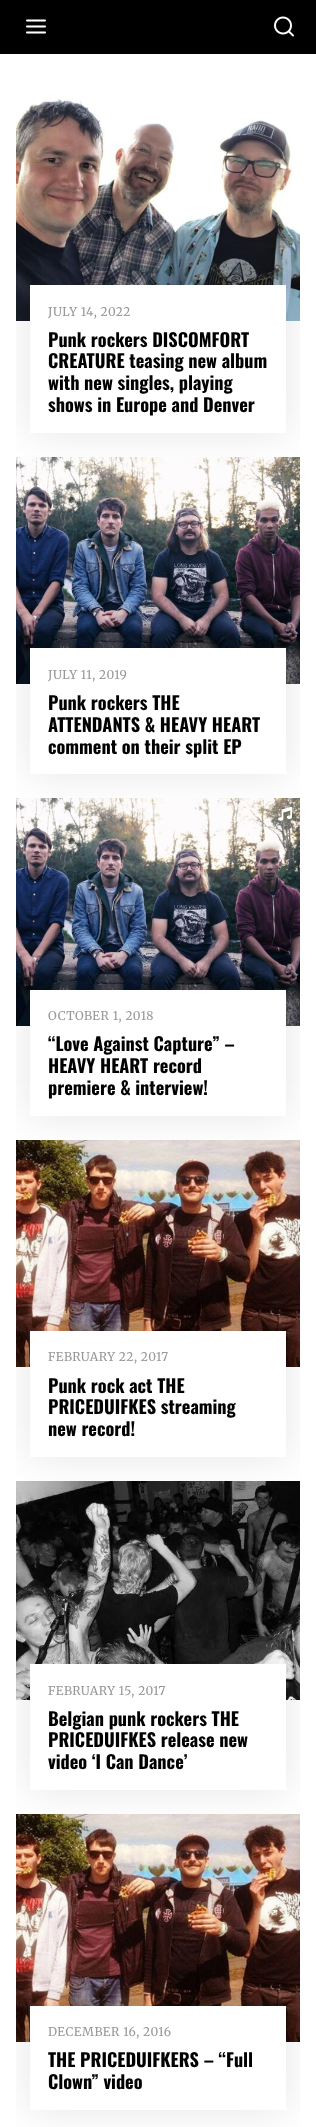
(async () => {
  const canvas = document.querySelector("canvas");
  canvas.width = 316;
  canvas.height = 2127;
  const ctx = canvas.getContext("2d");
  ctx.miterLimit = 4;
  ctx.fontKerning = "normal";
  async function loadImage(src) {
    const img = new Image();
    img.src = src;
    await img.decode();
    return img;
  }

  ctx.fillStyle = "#ffffff";
  ctx.fillRect(0, 0, 316, 2127);
  ctx.fillStyle = "#000000";
  ctx.fillRect(0, 0, 316, 54);
  ctx.drawImage(await loadImage("img/1.png"), 26, 19, 20, 15);
  ctx.drawImage(await loadImage("img/2.png"), 274, 16, 20, 21);
  ctx.drawImage(await loadImage("img/3.png"), 16, 94, 284, 227);
  ctx.save();
  ctx.beginPath();
  ctx.rect(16, 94, 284, 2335);
  ctx.clip();
  ctx.fillStyle = "rgba(0, 0, 0, 0.1)";
  ctx.filter = "blur(20px)";
  ctx.beginPath();
  ctx.rect(30, 285, 256, 148);
  ctx.fill();
  ctx.filter = "none";
  ctx.restore();
  ctx.fillStyle = "#ffffff";
  ctx.fillRect(30, 285, 256, 148);
  ctx.drawImage(await loadImage("img/4.png"), 16, 457, 284, 227);
  ctx.save();
  ctx.beginPath();
  ctx.rect(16, 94, 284, 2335);
  ctx.clip();
  ctx.fillStyle = "rgba(0, 0, 0, 0.1)";
  ctx.filter = "blur(20px)";
  ctx.beginPath();
  ctx.rect(30, 648, 256, 126);
  ctx.fill();
  ctx.filter = "none";
  ctx.restore();
  ctx.fillRect(30, 648, 256, 126);
  ctx.drawImage(await loadImage("img/5.png"), 16, 798, 284, 228);
  ctx.drawImage(await loadImage("img/6.png"), 278, 806, 14, 15);
  ctx.save();
  ctx.beginPath();
  ctx.rect(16, 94, 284, 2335);
  ctx.clip();
  ctx.fillStyle = "rgba(0, 0, 0, 0.1)";
  ctx.filter = "blur(20px)";
  ctx.beginPath();
  ctx.rect(30, 990, 256, 126);
  ctx.fill();
  ctx.filter = "none";
  ctx.restore();
  ctx.fillRect(30, 990, 256, 126);
  ctx.drawImage(await loadImage("img/7.png"), 16, 1140, 284, 227);
  ctx.save();
  ctx.beginPath();
  ctx.rect(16, 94, 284, 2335);
  ctx.clip();
  ctx.fillStyle = "rgba(0, 0, 0, 0.1)";
  ctx.filter = "blur(20px)";
  ctx.beginPath();
  ctx.rect(30, 1331, 256, 126);
  ctx.fill();
  ctx.filter = "none";
  ctx.restore();
  ctx.fillRect(30, 1331, 256, 126);
  ctx.drawImage(await loadImage("img/8.png"), 16, 1481, 284, 219);
  ctx.save();
  ctx.beginPath();
  ctx.rect(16, 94, 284, 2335);
  ctx.clip();
  ctx.fillStyle = "rgba(0, 0, 0, 0.1)";
  ctx.filter = "blur(20px)";
  ctx.beginPath();
  ctx.rect(30, 1664, 256, 126);
  ctx.fill();
  ctx.filter = "none";
  ctx.restore();
  ctx.fillRect(30, 1664, 256, 126);
  ctx.drawImage(await loadImage("img/9.png"), 16, 1814, 284, 228);
  ctx.save();
  ctx.beginPath();
  ctx.rect(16, 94, 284, 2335);
  ctx.clip();
  ctx.fillStyle = "rgba(0, 0, 0, 0.1)";
  ctx.filter = "blur(20px)";
  ctx.beginPath();
  ctx.rect(30, 2006, 256, 104);
  ctx.fill();
  ctx.filter = "none";
  ctx.restore();
  ctx.fillRect(30, 2006, 256, 104);
  ctx.letterSpacing = "0.5px";
  ctx.font = "12px Merriweather";
  ctx.fillStyle = "#999999";
  ctx.fillText("JULY 14, 2022", 48, 316);
  ctx.letterSpacing = "0px";
  ctx.font = "bold 18.25px Oswald";
  ctx.fillStyle = "#000000";
  for (const [text, x, y] of [
    ["Punk rockers DISCOMFORT", 48, 347],
    ["CREATURE teasing new album", 48, 368],
    ["with new singles, playing", 48, 390],
    ["shows in Europe and Denver", 48, 412],
  ]) {
    ctx.fillText(text, x, y);
  }
  ctx.letterSpacing = "0.5px";
  ctx.font = "12px Merriweather";
  ctx.fillStyle = "#999999";
  ctx.fillText("JULY 11, 2019", 48, 679);
  ctx.letterSpacing = "0px";
  ctx.font = "bold 18.25px Oswald";
  ctx.fillStyle = "#000000";
  for (const [text, x, y] of [
    ["Punk rockers THE", 48, 710],
    ["ATTENDANTS & HEAVY HEART", 48, 732],
    ["comment on their split EP", 48, 754],
  ]) {
    ctx.fillText(text, x, y);
  }
  ctx.letterSpacing = "0.5px";
  ctx.font = "12px Merriweather";
  ctx.fillStyle = "#999999";
  ctx.fillText("OCTOBER 1, 2018", 48, 1020);
  ctx.letterSpacing = "0px";
  ctx.font = "bold 18.25px Oswald";
  ctx.fillStyle = "#000000";
  for (const [text, x, y] of [
    ["“Love Against Capture” –", 48, 1051],
    ["HEAVY HEART record", 48, 1073],
    ["premiere & interview!", 48, 1095],
  ]) {
    ctx.fillText(text, x, y);
  }
  ctx.letterSpacing = "0.5px";
  ctx.font = "12px Merriweather";
  ctx.fillStyle = "#999999";
  ctx.fillText("FEBRUARY 22, 2017", 48, 1361);
  ctx.letterSpacing = "0px";
  ctx.font = "bold 18.25px Oswald";
  ctx.fillStyle = "#000000";
  for (const [text, x, y] of [
    ["Punk rock act THE", 48, 1393],
    ["PRICEDUIFKES streaming", 48, 1414],
    ["new record!", 48, 1436],
  ]) {
    ctx.fillText(text, x, y);
  }
  ctx.letterSpacing = "0.5px";
  ctx.font = "12px Merriweather";
  ctx.fillStyle = "#999999";
  ctx.fillText("FEBRUARY 15, 2017", 48, 1695);
  ctx.letterSpacing = "0px";
  ctx.font = "bold 18.25px Oswald";
  ctx.fillStyle = "#000000";
  for (const [text, x, y] of [
    ["Belgian punk rockers THE", 48, 1726],
    ["PRICEDUIFKES release new", 48, 1747],
    ["video ‘I Can Dance’", 48, 1769],
  ]) {
    ctx.fillText(text, x, y);
  }
  ctx.letterSpacing = "0.5px";
  ctx.font = "12px Merriweather";
  ctx.fillStyle = "#999999";
  ctx.fillText("DECEMBER 16, 2016", 48, 2036);
  ctx.letterSpacing = "0px";
  ctx.font = "bold 18.25px Oswald";
  ctx.fillStyle = "#000000";
  ctx.fillText("THE PRICEDUIFKERS – “Full", 48, 2067);
  ctx.fillText("Clown” video", 48, 2089);
})();
